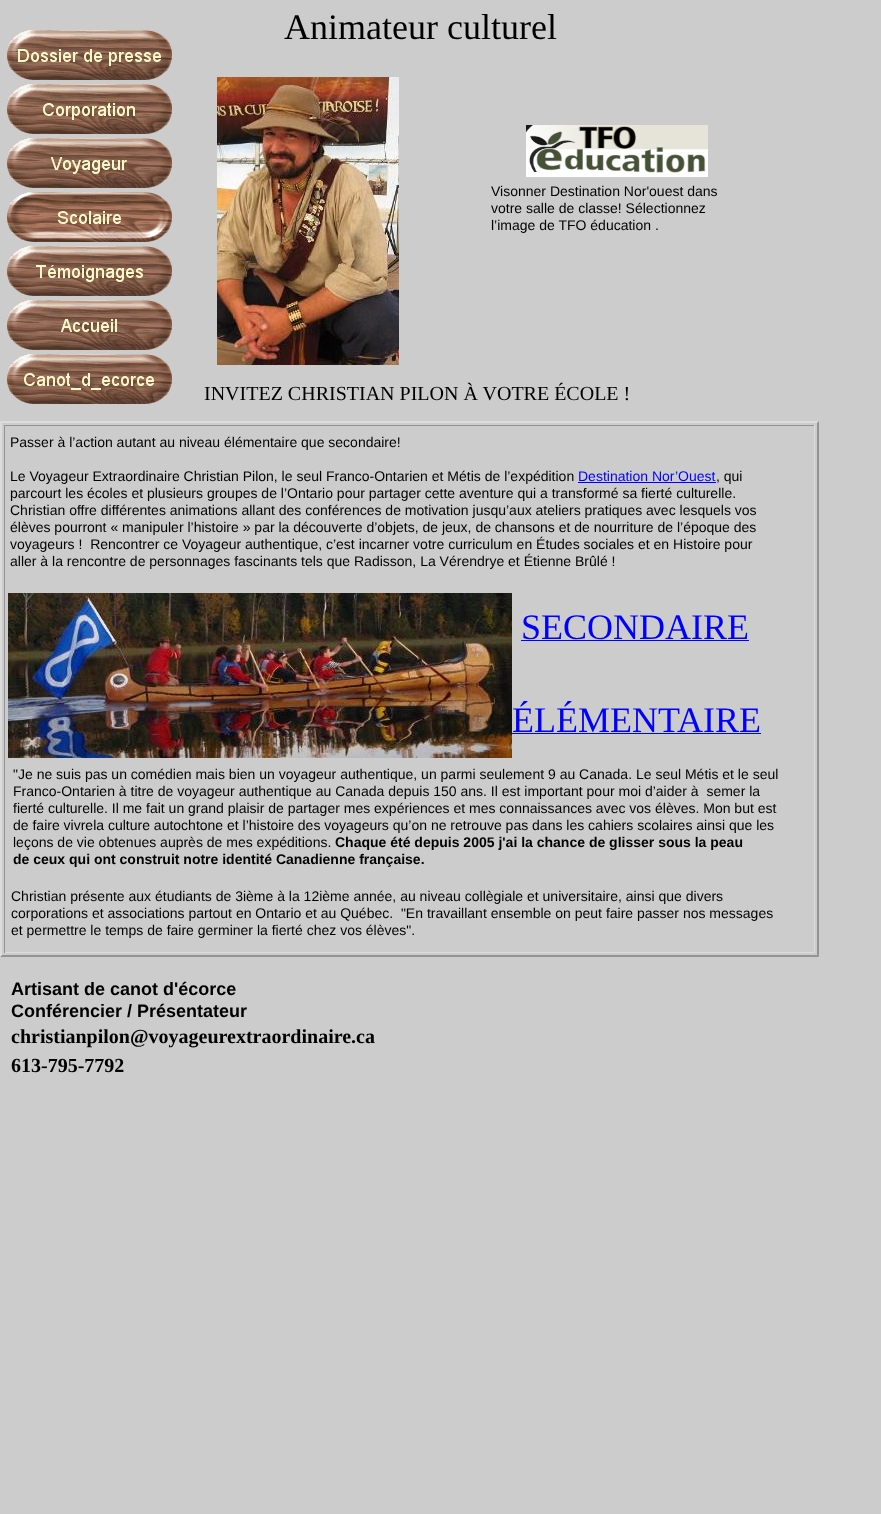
(async () => {
  const canvas = document.querySelector("canvas");
  canvas.width = 881;
  canvas.height = 1514;
  const ctx = canvas.getContext("2d");
  ctx.miterLimit = 4;
  ctx.fontKerning = "normal";
  async function loadImage(src) {
    const img = new Image();
    img.src = src;
    await img.decode();
    return img;
  }
  let path;

  ctx.fillStyle = "#cccccc";
  ctx.fillRect(0, 0, 881, 1514);
  ctx.drawImage(await loadImage("img/1.png"), 7, 30, 165, 50);
  ctx.drawImage(await loadImage("img/2.png"), 7, 84, 165, 50);
  ctx.drawImage(await loadImage("img/3.png"), 7, 138, 165, 50);
  ctx.drawImage(await loadImage("img/4.png"), 7, 192, 165, 50);
  ctx.drawImage(await loadImage("img/5.png"), 7, 246, 165, 50);
  ctx.drawImage(await loadImage("img/6.png"), 7, 300, 165, 50);
  ctx.drawImage(await loadImage("img/7.png"), 7, 354, 165, 50);
  ctx.drawImage(await loadImage("img/8.png"), 217, 77, 182, 288);
  ctx.drawImage(await loadImage("img/9.png"), 526, 125, 182, 52);
  ctx.fillStyle = "#dcdcdc";
  path = new Path2D("M0 421H819L817 423H2Z");
  ctx.fill(path);
  ctx.fillStyle = "#939393";
  path = new Path2D("M819 421V957L817 955V423Z");
  ctx.fill(path);
  path = new Path2D("M819 957H0L2 955H817Z");
  ctx.fill(path);
  ctx.fillStyle = "#dcdcdc";
  path = new Path2D("M0 957V421L2 423V955Z");
  ctx.fill(path);
  for (const [x, y, w, h, color] of [
    [4, 425, 811, 1, "#939393"],
    [814, 425, 1, 528, "#dcdcdc"],
    [4, 952, 811, 1, "#dcdcdc"],
    [4, 425, 1, 528, "#939393"],
    [578, 482, 138, 1, "#0000ff"],
  ]) {
    ctx.fillStyle = color;
    ctx.fillRect(x, y, w, h);
  }
  ctx.drawImage(await loadImage("img/10.png"), 8, 593, 504, 165);
  ctx.fillRect(521, 640, 228, 1);
  ctx.fillRect(512, 733, 249, 1);
  ctx.font = "36px Liberation Serif";
  ctx.fillStyle = "#000000";
  ctx.fillText("Animateur culturel", 284, 39);
  ctx.font = "14px Liberation Sans";
  for (const [text, x, y] of [
    ["Visonner Destination Nor'ouest dans", 491, 196],
    ["votre salle de classe! Sélectionnez", 491, 213],
    ["l’image de TFO éducation .", 491, 230],
  ]) {
    ctx.fillText(text, x, y);
  }
  ctx.font = "20px Liberation Serif";
  ctx.fillText("INVITEZ CHRISTIAN PILON À VOTRE ÉCOLE !", 204, 400);
  ctx.font = "14px Liberation Sans";
  ctx.fillText("Passer à l’action autant au niveau élémentaire que secondaire!", 10, 447);
  ctx.fillText("Le Voyageur Extraordinaire Christian Pilon, le seul Franco-Ontarien et Métis de l’expédition", 10, 481);
  ctx.fillStyle = "#0000ff";
  ctx.fillText("Destination Nor’Ouest", 578, 481);
  ctx.fillStyle = "#000000";
  for (const [text, x, y] of [
    [", qui", 716, 481],
    ["parcourt les écoles et plusieurs groupes de l’Ontario pour partager cette aventure qui a transformé sa fierté culturelle.", 10, 498],
    ["Christian offre différentes animations allant des conférences de motivation jusqu’aux ateliers pratiques avec lesquels vos", 10, 515],
    ["élèves pourront « manipuler l’histoire » par la découverte d’objets, de jeux, de chansons et de nourriture de l’époque des", 10, 532],
    ["voyageurs !  Rencontrer ce Voyageur authentique, c’est incarner votre curriculum en Études sociales et en Histoire pour", 10, 549],
    ["aller à la rencontre de personnages fascinants tels que Radisson, La Vérendrye et Étienne Brûlé !", 10, 566],
  ]) {
    ctx.fillText(text, x, y);
  }
  ctx.font = "36px Liberation Serif";
  ctx.fillStyle = "#0000ff";
  ctx.fillText("SECONDAIRE", 521, 639);
  ctx.fillText("ÉLÉMENTAIRE", 512, 732);
  ctx.font = "14px Liberation Sans";
  ctx.fillStyle = "#000000";
  for (const [text, x, y] of [
    ["\"Je ne suis pas un comédien mais bien un voyageur authentique, un parmi seulement 9 au Canada. Le seul Métis et le seul", 13, 779],
    ["Franco-Ontarien à titre de voyageur authentique au Canada depuis 150 ans. Il est important pour moi d’aider à  semer la", 13, 796],
    ["fierté culturelle. Il me fait un grand plaisir de partager mes expériences et mes connaissances avec vos élèves. Mon but est", 13, 813],
    ["de faire vivrela culture autochtone et l’histoire des voyageurs qu’on ne retrouve pas dans les cahiers scolaires ainsi que les", 13, 830],
    ["leçons de vie obtenues auprès de mes expéditions.", 13, 847],
  ]) {
    ctx.fillText(text, x, y);
  }
  ctx.font = "bold 14px Liberation Sans";
  ctx.fillText("Chaque été depuis 2005 j'ai la chance de glisser sous la peau", 335, 847);
  ctx.fillText("de ceux qui ont construit notre identité Canadienne française.", 13, 864);
  ctx.font = "14px Liberation Sans";
  for (const [text, x, y] of [
    ["Christian présente aux étudiants de 3ième à la 12ième année, au niveau collègiale et universitaire, ainsi que divers", 11, 901],
    ["corporations et associations partout en Ontario et au Québec.  \"En travaillant ensemble on peut faire passer nos messages", 11, 918],
    ["et permettre le temps de faire germiner la fierté chez vos élèves\".", 11, 935],
  ]) {
    ctx.fillText(text, x, y);
  }
  ctx.font = "bold 18px Liberation Sans";
  ctx.fillText("Artisant de canot d'écorce", 11, 995);
  ctx.fillText("Conférencier / Présentateur", 11, 1017);
  ctx.font = "bold 20px Liberation Serif";
  ctx.fillText("christianpilon@voyageurextraordinaire.ca", 11, 1043);
  ctx.fillText("613-795-7792", 11, 1072);
})();
